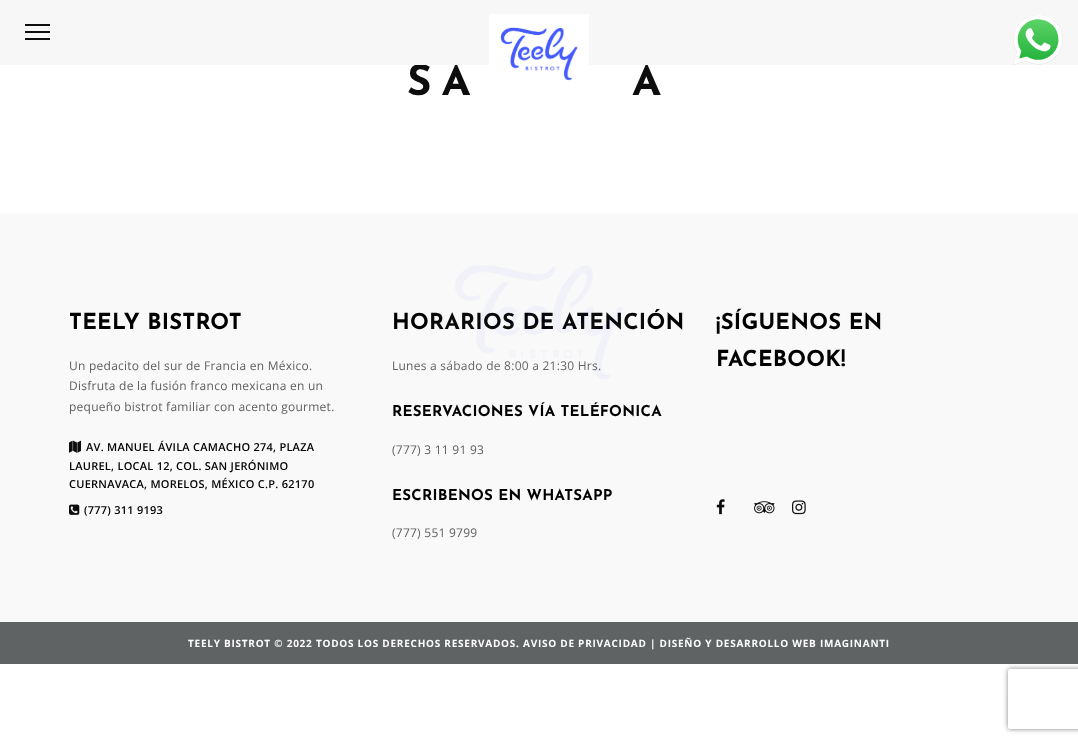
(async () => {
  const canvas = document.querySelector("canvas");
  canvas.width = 1078;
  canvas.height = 743;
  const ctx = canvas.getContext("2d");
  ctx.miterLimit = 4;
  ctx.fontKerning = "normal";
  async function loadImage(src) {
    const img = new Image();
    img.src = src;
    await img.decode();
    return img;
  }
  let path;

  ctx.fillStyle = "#ffffff";
  ctx.fillRect(0, 0, 1078, 743);
  ctx.fillStyle = "#f9f9f9";
  ctx.fillRect(0, 213, 1078, 409);
  ctx.drawImage(await loadImage("img/4.png"), 69, 440, 12, 13);
  ctx.drawImage(await loadImage("img/5.png"), 69, 504, 11, 11);
  ctx.drawImage(await loadImage("img/6.png"), 716, 499, 9, 16);
  ctx.drawImage(await loadImage("img/7.png"), 754, 501, 21, 13);
  ctx.drawImage(await loadImage("img/8.png"), 792, 500, 14, 15);
  ctx.fillStyle = "#575b5c";
  ctx.fillRect(0, 622, 1078, 42);
  ctx.save();
  path = new Path2D("M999 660H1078V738H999ZM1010 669H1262C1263 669 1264 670 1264 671V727C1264 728 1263 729 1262 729H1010C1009 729 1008 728 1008 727V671C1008 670 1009 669 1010 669Z");
  ctx.clip(path, "evenodd");
  ctx.fillStyle = "#808080";
  ctx.filter = "blur(2.5px)";
  ctx.beginPath();
  ctx.roundRect(1008, 669, 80, 60, 2);
  ctx.fill();
  ctx.filter = "none";
  ctx.restore();
  ctx.letterSpacing = "10px";
  ctx.font = "bold 42px Josefin Sans";
  ctx.fillStyle = "#000000";
  ctx.fillText("SA", 407, 95);
  ctx.fillText("A", 632, 95);
  for (const [x, y, w, h, color] of [
    [0, 0, 1078, 65, "#f7f7f7"],
    [25, 38, 25, 2, "#000000"],
    [25, 24, 25, 2, "#000000"],
    [25, 31, 25, 2, "#000000"],
  ]) {
    ctx.fillStyle = color;
    ctx.fillRect(x, y, w, h);
  }
  ctx.drawImage(await loadImage("img/1.png"), 489, 14, 100, 79);
  ctx.fillStyle = "rgba(255, 255, 255, 0.05)";
  ctx.fillRect(0, 24, 1078, 669);
  ctx.drawImage(await loadImage("img/2.png"), 1013, 15, 50, 50);
  ctx.letterSpacing = "0.25px";
  ctx.font = "bold 22px Josefin Sans";
  ctx.fillStyle = "#000000";
  ctx.fillText("TEELY BISTROT", 69, 329);
  ctx.font = "12px Open Sans";
  ctx.fillStyle = "#5e5e5e";
  for (const [text, x, y] of [
    ["Un pedacito del sur de Francia en México.", 69, 370],
    ["Disfruta de la fusión franco mexicana en un", 69, 390],
    ["pequeño bistrot familiar con acento gourmet.", 69, 411],
  ]) {
    ctx.fillText(text, x, y);
  }
  ctx.font = "600 11px Open Sans";
  ctx.fillStyle = "#000000";
  for (const [text, x, y] of [
    ["AV. MANUEL ÁVILA CAMACHO 274, PLAZA", 86, 451],
    ["LAUREL, LOCAL 12, COL. SAN JERÓNIMO", 69, 470],
    ["CUERNAVACA, MORELOS, MÉXICO C.P. 62170", 69, 488],
    ["(777) 311 9193", 84, 514],
  ]) {
    ctx.fillText(text, x, y);
  }
  ctx.font = "bold 22px Josefin Sans";
  ctx.fillText("HORARIOS DE ATENCIÓN", 392, 329);
  ctx.font = "12px Open Sans";
  ctx.fillStyle = "#5e5e5e";
  ctx.fillText("Lunes a sábado de 8:00 a 21:30 Hrs.", 392, 370);
  ctx.font = "bold 15px Josefin Sans";
  ctx.fillStyle = "#000000";
  ctx.fillText("RESERVACIONES VÍA TELÉFONICA", 392, 416);
  ctx.drawImage(await loadImage("img/3.png"), 429, 265, 220, 143);
  ctx.font = "12px Open Sans";
  ctx.fillStyle = "#5e5e5e";
  ctx.fillText("(777) 3 11 91 93", 392, 454);
  ctx.font = "bold 15px Josefin Sans";
  ctx.fillStyle = "#000000";
  ctx.fillText("ESCRIBENOS EN WHATSAPP", 392, 500);
  ctx.font = "12px Open Sans";
  ctx.fillStyle = "#5e5e5e";
  ctx.fillText("(777) 551 9799", 392, 537);
  ctx.font = "bold 22px Josefin Sans";
  ctx.fillStyle = "#000000";
  ctx.fillText("¡SÍGUENOS EN", 716, 329);
  ctx.fillText("FACEBOOK!", 716, 366);
  ctx.letterSpacing = "0.75px";
  ctx.font = "bold 10px Open Sans";
  ctx.fillStyle = "#ffffff";
  ctx.fillText("TEELY BISTROT © 2022 TODOS LOS DERECHOS RESERVADOS. AVISO DE PRIVACIDAD | DISEÑO Y DESARROLLO WEB IMAGINANTI", 188, 647);
})();
